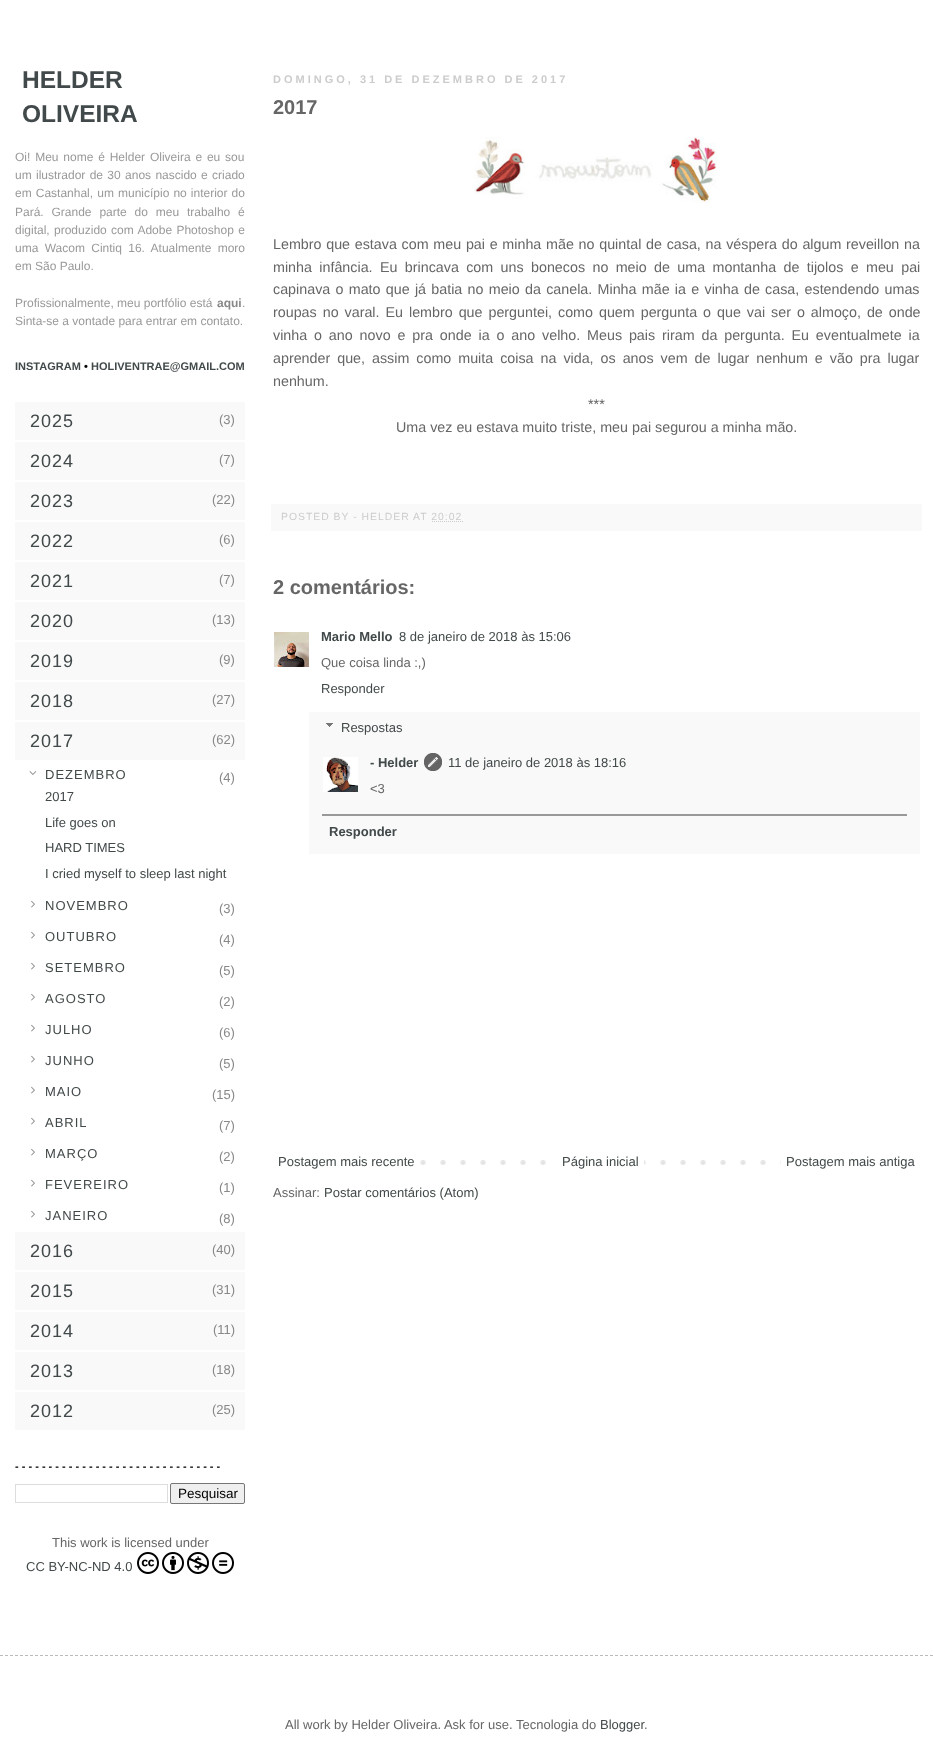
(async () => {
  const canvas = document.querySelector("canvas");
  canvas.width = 933;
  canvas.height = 1755;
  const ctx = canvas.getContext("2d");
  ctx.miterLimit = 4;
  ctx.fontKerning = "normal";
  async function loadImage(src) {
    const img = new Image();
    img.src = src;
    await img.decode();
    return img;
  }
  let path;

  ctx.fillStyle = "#ffffff";
  ctx.fillRect(0, 0, 933, 1755);
  for (const [x, y, w, h, color] of [
    [15, 402, 230, 38, "#f9f9f9"],
    [15, 442, 230, 38, "#f9f9f9"],
    [15, 482, 230, 38, "#f9f9f9"],
    [15, 522, 230, 38, "#f9f9f9"],
    [15, 562, 230, 38, "#f9f9f9"],
    [15, 602, 230, 38, "#f9f9f9"],
    [15, 642, 230, 38, "#f9f9f9"],
    [15, 682, 230, 38, "#f9f9f9"],
    [15, 722, 230, 38, "#f9f9f9"],
  ]) {
    ctx.fillStyle = color;
    ctx.fillRect(x, y, w, h);
  }
  ctx.drawImage(await loadImage("img/1.png"), 29, 771, 8, 4);
  ctx.drawImage(await loadImage("img/2.png"), 31, 900, 4, 8);
  ctx.drawImage(await loadImage("img/2.png"), 31, 931, 4, 8);
  ctx.drawImage(await loadImage("img/2.png"), 31, 962, 4, 8);
  ctx.drawImage(await loadImage("img/2.png"), 31, 993, 4, 8);
  ctx.drawImage(await loadImage("img/2.png"), 31, 1024, 4, 8);
  ctx.drawImage(await loadImage("img/2.png"), 31, 1055, 4, 8);
  ctx.drawImage(await loadImage("img/2.png"), 31, 1086, 4, 8);
  ctx.drawImage(await loadImage("img/2.png"), 31, 1117, 4, 8);
  ctx.drawImage(await loadImage("img/2.png"), 31, 1148, 4, 8);
  ctx.drawImage(await loadImage("img/2.png"), 31, 1179, 4, 8);
  ctx.drawImage(await loadImage("img/2.png"), 31, 1210, 4, 8);
  for (const [x, y, w, h, color] of [
    [15, 1232, 230, 38, "#f9f9f9"],
    [15, 1272, 230, 38, "#f9f9f9"],
    [15, 1312, 230, 38, "#f9f9f9"],
    [15, 1352, 230, 38, "#f9f9f9"],
    [15, 1392, 230, 38, "#f9f9f9"],
  ]) {
    ctx.fillStyle = color;
    ctx.fillRect(x, y, w, h);
  }
  ctx.strokeStyle = "#dddddd";
  ctx.strokeRect(15.5, 1484.5, 152, 18);
  ctx.fillStyle = "#efefef";
  ctx.beginPath();
  ctx.roundRect(170.5, 1483.5, 74, 20, 1.5);
  ctx.fill();
  ctx.strokeStyle = "#767676";
  ctx.stroke();
  ctx.drawImage(await loadImage("img/3.png"), 137, 1552, 22, 22);
  ctx.drawImage(await loadImage("img/4.png"), 162, 1552, 22, 22);
  ctx.drawImage(await loadImage("img/5.png"), 187, 1552, 22, 22);
  ctx.drawImage(await loadImage("img/6.png"), 212, 1552, 22, 22);
  ctx.drawImage(await loadImage("img/7.png"), 474, 137, 243, 66);
  ctx.fillStyle = "#f9f9f9";
  ctx.fillRect(271, 504, 651, 27);
  path = new Path2D("M432 521.5H463");
  ctx.strokeStyle = "#cccccc";
  ctx.setLineDash([1, 1]);
  ctx.stroke(path);
  ctx.drawImage(await loadImage("img/8.png"), 274, 632, 35, 35);
  ctx.fillRect(309, 712, 611, 142);
  ctx.drawImage(await loadImage("img/9.png"), 326, 723, 7, 4);
  ctx.drawImage(await loadImage("img/10.png"), 323, 757, 35, 35);
  ctx.drawImage(await loadImage("img/11.png"), 424, 753, 18, 18);
  ctx.fillStyle = "#999999";
  ctx.fillRect(322, 814, 585, 2);
  ctx.drawImage(await loadImage("img/12.png"), 420, 1160, 361, 5);
  ctx.fillStyle = "#ffffff";
  ctx.fillRect(560, 1160, 84, 5);
  path = new Path2D("M0 1655.5H933");
  ctx.strokeStyle = "#bbbbbb";
  ctx.setLineDash([3, 2]);
  ctx.stroke(path);
  ctx.font = "bold 24.5px Liberation Sans";
  ctx.fillStyle = "#42494a";
  ctx.fillText("HELDER", 22, 88);
  ctx.fillText("OLIVEIRA", 22, 122);
  ctx.wordSpacing = "1.5px";
  ctx.font = "12px Liberation Sans";
  ctx.fillStyle = "#999999";
  ctx.fillText("Oi! Meu nome é Helder Oliveira e eu sou", 15, 161);
  ctx.wordSpacing = "1px";
  ctx.fillText("um ilustrador de 30 anos nascido e criado", 15, 179);
  ctx.wordSpacing = "0.75px";
  ctx.fillText("em Castanhal, um município no interior do", 15, 197);
  ctx.wordSpacing = "4.5px";
  ctx.fillText("Pará. Grande parte do meu trabalho é", 15, 216);
  ctx.wordSpacing = "1px";
  ctx.fillText("digital, produzido com Adobe Photoshop e", 15, 234);
  ctx.wordSpacing = "3px";
  ctx.fillText("uma Wacom Cintiq 16. Atualmente moro", 15, 252);
  ctx.wordSpacing = "0px";
  ctx.fillText("em São Paulo.", 15, 270);
  ctx.fillText("Profissionalmente, meu portfólio está", 15, 307);
  ctx.font = "bold 12px Liberation Sans";
  ctx.fillStyle = "#888888";
  ctx.fillText("aqui", 217, 307);
  ctx.font = "12px Liberation Sans";
  ctx.fillStyle = "#999999";
  ctx.fillText(".", 242, 307);
  ctx.fillText("Sinta-se a vontade para entrar em contato.", 15, 325);
  ctx.font = "bold 11px Liberation Sans";
  ctx.fillStyle = "#42494a";
  ctx.fillText("INSTAGRAM", 15, 370);
  ctx.fillStyle = "#000000";
  ctx.fillText("•", 84, 370);
  ctx.fillStyle = "#42494a";
  ctx.fillText("HOLIVENTRAE@GMAIL.COM", 91, 370);
  ctx.letterSpacing = "1px";
  ctx.font = "18px Liberation Sans";
  ctx.fillText("2025", 30, 427);
  ctx.letterSpacing = "0px";
  ctx.font = "13px Liberation Sans";
  ctx.fillStyle = "#888888";
  ctx.fillText("(3)", 219, 424);
  ctx.letterSpacing = "1px";
  ctx.font = "18px Liberation Sans";
  ctx.fillStyle = "#42494a";
  ctx.fillText("2024", 30, 467);
  ctx.letterSpacing = "0px";
  ctx.font = "13px Liberation Sans";
  ctx.fillStyle = "#888888";
  ctx.fillText("(7)", 219, 464);
  ctx.letterSpacing = "1px";
  ctx.font = "18px Liberation Sans";
  ctx.fillStyle = "#42494a";
  ctx.fillText("2023", 30, 507);
  ctx.letterSpacing = "0px";
  ctx.font = "13px Liberation Sans";
  ctx.fillStyle = "#888888";
  ctx.fillText("(22)", 212, 504);
  ctx.letterSpacing = "1px";
  ctx.font = "18px Liberation Sans";
  ctx.fillStyle = "#42494a";
  ctx.fillText("2022", 30, 547);
  ctx.letterSpacing = "0px";
  ctx.font = "13px Liberation Sans";
  ctx.fillStyle = "#888888";
  ctx.fillText("(6)", 219, 544);
  ctx.letterSpacing = "1px";
  ctx.font = "18px Liberation Sans";
  ctx.fillStyle = "#42494a";
  ctx.fillText("2021", 30, 587);
  ctx.letterSpacing = "0px";
  ctx.font = "13px Liberation Sans";
  ctx.fillStyle = "#888888";
  ctx.fillText("(7)", 219, 584);
  ctx.letterSpacing = "1px";
  ctx.font = "18px Liberation Sans";
  ctx.fillStyle = "#42494a";
  ctx.fillText("2020", 30, 627);
  ctx.letterSpacing = "0px";
  ctx.font = "13px Liberation Sans";
  ctx.fillStyle = "#888888";
  ctx.fillText("(13)", 212, 624);
  ctx.letterSpacing = "1px";
  ctx.font = "18px Liberation Sans";
  ctx.fillStyle = "#42494a";
  ctx.fillText("2019", 30, 667);
  ctx.letterSpacing = "0px";
  ctx.font = "13px Liberation Sans";
  ctx.fillStyle = "#888888";
  ctx.fillText("(9)", 219, 664);
  ctx.letterSpacing = "1px";
  ctx.font = "18px Liberation Sans";
  ctx.fillStyle = "#42494a";
  ctx.fillText("2018", 30, 707);
  ctx.letterSpacing = "0px";
  ctx.font = "13px Liberation Sans";
  ctx.fillStyle = "#888888";
  ctx.fillText("(27)", 212, 704);
  ctx.letterSpacing = "1px";
  ctx.font = "18px Liberation Sans";
  ctx.fillStyle = "#42494a";
  ctx.fillText("2017", 30, 747);
  ctx.letterSpacing = "0px";
  ctx.font = "13px Liberation Sans";
  ctx.fillStyle = "#888888";
  ctx.fillText("(62)", 212, 744);
  ctx.letterSpacing = "1px";
  ctx.fillStyle = "#42494a";
  ctx.fillText("DEZEMBRO", 45, 779);
  ctx.letterSpacing = "0px";
  ctx.fillStyle = "#888888";
  ctx.fillText("(4)", 219, 782);
  ctx.fillStyle = "#42494a";
  for (const [text, x, y] of [
    ["2017", 45, 801],
    ["Life goes on", 45, 827],
    ["HARD TIMES", 45, 852],
    ["I cried myself to sleep last night", 45, 878],
  ]) {
    ctx.fillText(text, x, y);
  }
  ctx.letterSpacing = "1px";
  ctx.fillText("NOVEMBRO", 45, 910);
  ctx.letterSpacing = "0px";
  ctx.fillStyle = "#888888";
  ctx.fillText("(3)", 219, 913);
  ctx.letterSpacing = "1px";
  ctx.fillStyle = "#42494a";
  ctx.fillText("OUTUBRO", 45, 941);
  ctx.letterSpacing = "0px";
  ctx.fillStyle = "#888888";
  ctx.fillText("(4)", 219, 944);
  ctx.letterSpacing = "1px";
  ctx.fillStyle = "#42494a";
  ctx.fillText("SETEMBRO", 45, 972);
  ctx.letterSpacing = "0px";
  ctx.fillStyle = "#888888";
  ctx.fillText("(5)", 219, 975);
  ctx.letterSpacing = "1px";
  ctx.fillStyle = "#42494a";
  ctx.fillText("AGOSTO", 45, 1003);
  ctx.letterSpacing = "0px";
  ctx.fillStyle = "#888888";
  ctx.fillText("(2)", 219, 1006);
  ctx.letterSpacing = "1px";
  ctx.fillStyle = "#42494a";
  ctx.fillText("JULHO", 45, 1034);
  ctx.letterSpacing = "0px";
  ctx.fillStyle = "#888888";
  ctx.fillText("(6)", 219, 1037);
  ctx.letterSpacing = "1px";
  ctx.fillStyle = "#42494a";
  ctx.fillText("JUNHO", 45, 1065);
  ctx.letterSpacing = "0px";
  ctx.fillStyle = "#888888";
  ctx.fillText("(5)", 219, 1068);
  ctx.letterSpacing = "1px";
  ctx.fillStyle = "#42494a";
  ctx.fillText("MAIO", 45, 1096);
  ctx.letterSpacing = "0px";
  ctx.fillStyle = "#888888";
  ctx.fillText("(15)", 212, 1099);
  ctx.letterSpacing = "1px";
  ctx.fillStyle = "#42494a";
  ctx.fillText("ABRIL", 45, 1127);
  ctx.letterSpacing = "0px";
  ctx.fillStyle = "#888888";
  ctx.fillText("(7)", 219, 1130);
  ctx.letterSpacing = "1px";
  ctx.fillStyle = "#42494a";
  ctx.fillText("MARÇO", 45, 1158);
  ctx.letterSpacing = "0px";
  ctx.fillStyle = "#888888";
  ctx.fillText("(2)", 219, 1161);
  ctx.letterSpacing = "1px";
  ctx.fillStyle = "#42494a";
  ctx.fillText("FEVEREIRO", 45, 1189);
  ctx.letterSpacing = "0px";
  ctx.fillStyle = "#888888";
  ctx.fillText("(1)", 219, 1192);
  ctx.letterSpacing = "1px";
  ctx.fillStyle = "#42494a";
  ctx.fillText("JANEIRO", 45, 1220);
  ctx.letterSpacing = "0px";
  ctx.fillStyle = "#888888";
  ctx.fillText("(8)", 219, 1223);
  ctx.letterSpacing = "1px";
  ctx.font = "18px Liberation Sans";
  ctx.fillStyle = "#42494a";
  ctx.fillText("2016", 30, 1257);
  ctx.letterSpacing = "0px";
  ctx.font = "13px Liberation Sans";
  ctx.fillStyle = "#888888";
  ctx.fillText("(40)", 212, 1254);
  ctx.letterSpacing = "1px";
  ctx.font = "18px Liberation Sans";
  ctx.fillStyle = "#42494a";
  ctx.fillText("2015", 30, 1297);
  ctx.letterSpacing = "0px";
  ctx.font = "13px Liberation Sans";
  ctx.fillStyle = "#888888";
  ctx.fillText("(31)", 212, 1294);
  ctx.letterSpacing = "1px";
  ctx.font = "18px Liberation Sans";
  ctx.fillStyle = "#42494a";
  ctx.fillText("2014", 30, 1337);
  ctx.letterSpacing = "0px";
  ctx.font = "13px Liberation Sans";
  ctx.fillStyle = "#888888";
  ctx.fillText("(11)", 213, 1334);
  ctx.letterSpacing = "1px";
  ctx.font = "18px Liberation Sans";
  ctx.fillStyle = "#42494a";
  ctx.fillText("2013", 30, 1377);
  ctx.letterSpacing = "0px";
  ctx.font = "13px Liberation Sans";
  ctx.fillStyle = "#888888";
  ctx.fillText("(18)", 212, 1374);
  ctx.letterSpacing = "1px";
  ctx.font = "18px Liberation Sans";
  ctx.fillStyle = "#42494a";
  ctx.fillText("2012", 30, 1417);
  ctx.letterSpacing = "0px";
  ctx.font = "13px Liberation Sans";
  ctx.fillStyle = "#888888";
  ctx.fillText("(25)", 212, 1414);
  ctx.font = "bold 11px Liberation Sans";
  ctx.fillStyle = "#000000";
  ctx.fillText("- - - - - - - - - - - - - - - - - - - - - - - - - - - - - - -", 15, 1470);
  ctx.font = "13.5px Liberation Sans";
  ctx.fillText("Pesquisar", 178, 1498);
  ctx.font = "13px Liberation Sans";
  ctx.fillStyle = "#666666";
  ctx.fillText("This work is licensed under", 52, 1547);
  ctx.fillStyle = "#42494a";
  ctx.fillText("CC BY-NC-ND 4.0", 26, 1571);
  ctx.letterSpacing = "3px";
  ctx.font = "bold 11px Liberation Sans";
  ctx.fillStyle = "#cccccc";
  ctx.fillText("DOMINGO, 31 DE DEZEMBRO DE 2017", 273, 83);
  ctx.letterSpacing = "0px";
  ctx.font = "bold 20px Liberation Sans";
  ctx.fillStyle = "#666666";
  ctx.fillText("2017", 273, 114);
  ctx.wordSpacing = "0.75px";
  ctx.font = "14.3px Liberation Sans";
  ctx.fillText("Lembro que estava com meu pai e minha mãe no quintal de casa, na véspera do algum reveillon na", 273, 249);
  ctx.wordSpacing = "3.4px";
  ctx.fillText("minha infância. Eu brincava com uns bonecos no meio de uma montanha de tijolos e meu pai", 273, 272);
  ctx.wordSpacing = "1.3px";
  ctx.fillText("capinava o mato que já batia no meio da canela. Minha mãe ia e vinha de casa, estendendo umas", 273, 294);
  ctx.wordSpacing = "2px";
  ctx.fillText("roupas no varal. Eu lembro que perguntei, como quem pergunta o que vai ser o almoço, de onde", 273, 317);
  ctx.wordSpacing = "2.9px";
  ctx.fillText("vinha o ano novo e pra onde ia o ano velho. Meus pais riram da pergunta. Eu eventualmete ia", 273, 340);
  ctx.wordSpacing = "3px";
  ctx.fillText("aprender que, assim como muita coisa na vida, os anos vem de lugar nenhum e vão pra lugar", 273, 363);
  ctx.wordSpacing = "0px";
  for (const [text, x, y] of [
    ["nenhum.", 273, 386],
    ["***", 588, 409],
    ["Uma vez eu estava muito triste, meu pai segurou a minha mão.", 396, 432],
  ]) {
    ctx.fillText(text, x, y);
  }
  ctx.letterSpacing = "1px";
  ctx.font = "10.4px Liberation Sans";
  ctx.fillStyle = "#cccccc";
  ctx.fillText("POSTED BY - HELDER AT 20:02", 281, 520);
  ctx.letterSpacing = "0px";
  ctx.font = "bold 20px Liberation Sans";
  ctx.fillStyle = "#666666";
  ctx.fillText("2 comentários:", 273, 594);
  ctx.font = "bold 13px Liberation Sans";
  ctx.fillStyle = "#42494a";
  ctx.fillText("Mario Mello", 321, 641);
  ctx.font = "13px Liberation Sans";
  ctx.fillText("8 de janeiro de 2018 às 15:06", 399, 641);
  ctx.fillStyle = "#666666";
  ctx.fillText("Que coisa linda :,)", 321, 667);
  ctx.fillStyle = "#42494a";
  ctx.fillText("Responder", 321, 693);
  ctx.fillText("Respostas", 341, 732);
  ctx.font = "bold 13px Liberation Sans";
  ctx.fillText("- Helder", 370, 767);
  ctx.font = "13px Liberation Sans";
  ctx.fillText("11 de janeiro de 2018 às 18:16", 448, 767);
  ctx.fillStyle = "#666666";
  ctx.fillText("<3", 370, 793);
  ctx.font = "bold 13px Liberation Sans";
  ctx.fillStyle = "#42494a";
  ctx.fillText("Responder", 329, 836);
  ctx.font = "13px Liberation Sans";
  for (const [text, x, y] of [
    ["Postagem mais recente", 278, 1166],
    ["Página inicial", 562, 1166],
    ["Postagem mais antiga", 786, 1166],
  ]) {
    ctx.fillText(text, x, y);
  }
  ctx.fillStyle = "#666666";
  ctx.fillText("Assinar:", 273, 1197);
  ctx.fillStyle = "#42494a";
  ctx.fillText("Postar comentários (Atom)", 324, 1197);
  ctx.fillStyle = "#666666";
  ctx.fillText("All work by Helder Oliveira. Ask for use. Tecnologia do", 285, 1729);
  ctx.fillStyle = "#42494a";
  ctx.fillText("Blogger", 600, 1729);
  ctx.fillStyle = "#666666";
  ctx.fillText(".", 644, 1729);
})();
